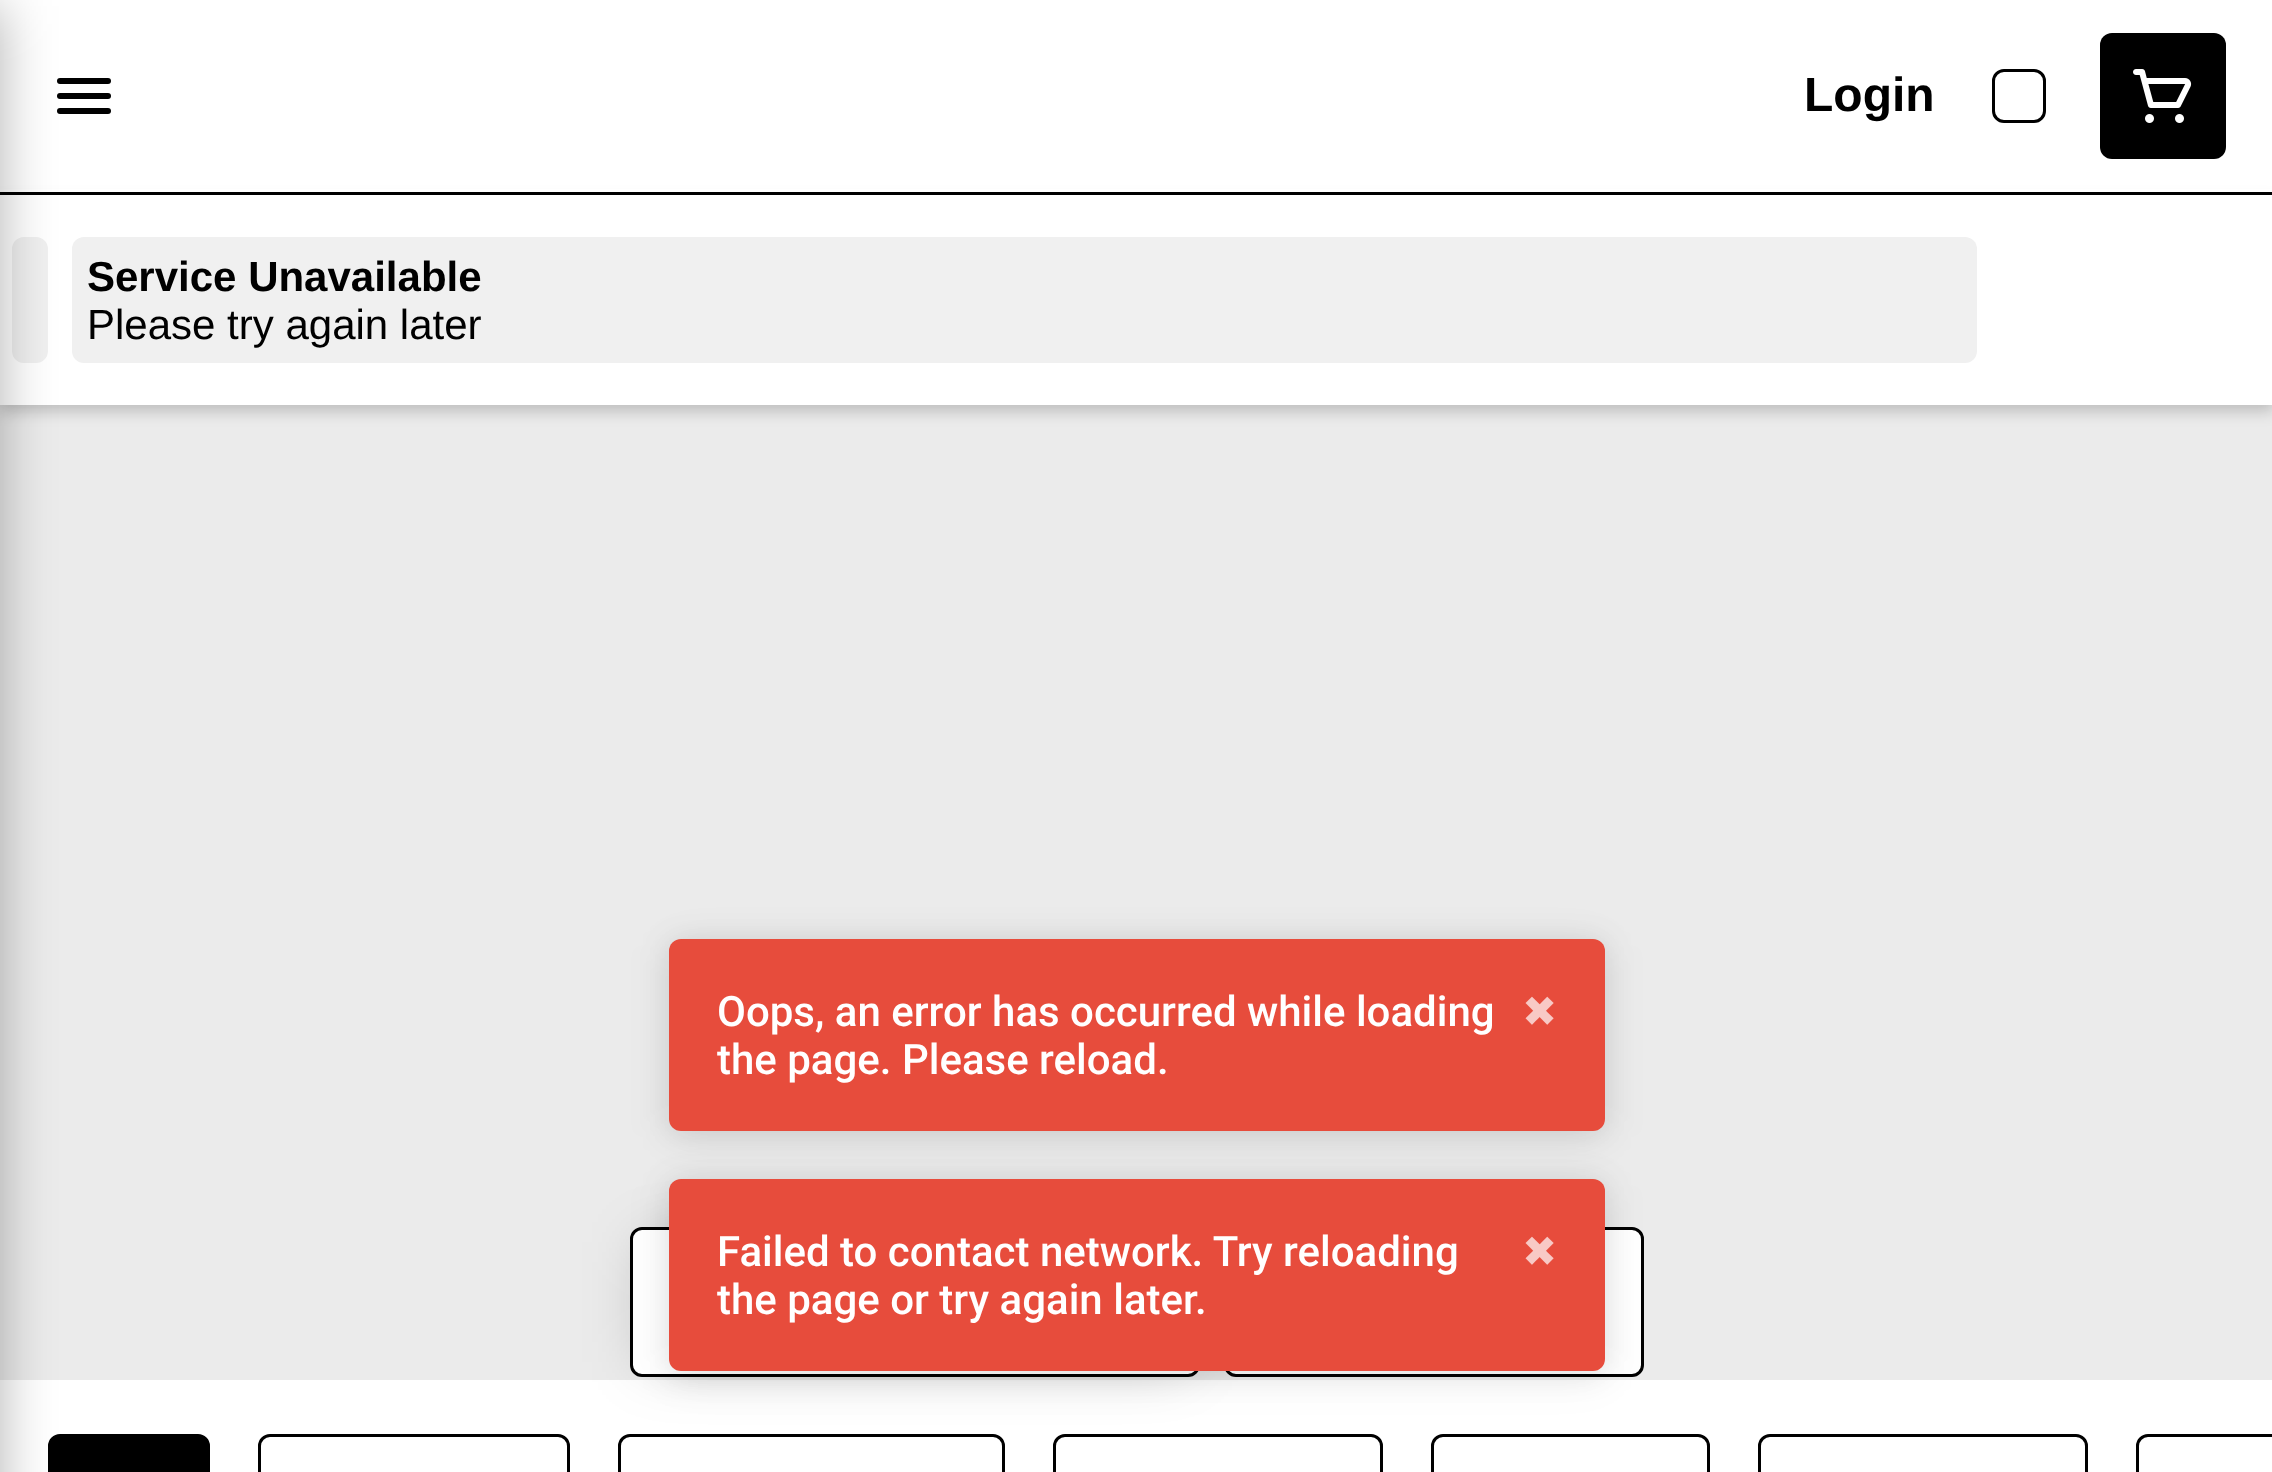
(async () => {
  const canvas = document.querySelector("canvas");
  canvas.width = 2272;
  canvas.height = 1472;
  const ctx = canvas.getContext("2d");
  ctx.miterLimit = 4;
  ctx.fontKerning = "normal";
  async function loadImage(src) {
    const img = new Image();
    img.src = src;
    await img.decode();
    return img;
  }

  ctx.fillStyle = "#ffffff";
  ctx.fillRect(0, 0, 2272, 1472);
  ctx.fillStyle = "#ebebeb";
  ctx.fillRect(0, 405, 2272, 975);
  ctx.fillStyle = "rgba(0, 0, 0, 0.2)";
  ctx.filter = "blur(7.5px)";
  ctx.beginPath();
  ctx.rect(0, 201, 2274, 210);
  ctx.fill();
  ctx.filter = "none";
  ctx.fillStyle = "#ffffff";
  ctx.fillRect(0, 189, 2272, 3);
  ctx.fillStyle = "#000000";
  ctx.fillRect(0, 192, 2272, 3);
  ctx.beginPath();
  ctx.roundRect(57, 93, 54, 6, 3);
  ctx.fill();
  ctx.beginPath();
  ctx.roundRect(57, 108, 54, 6, 3);
  ctx.fill();
  ctx.beginPath();
  ctx.roundRect(57, 78, 54, 6, 3);
  ctx.fill();
  ctx.fillStyle = "#ffffff";
  ctx.fillRect(0, 195, 2272, 210);
  ctx.fillStyle = "#f0f0f0";
  ctx.beginPath();
  ctx.roundRect(13.5, 238.5, 33, 123, 10.5);
  ctx.fill();
  ctx.strokeStyle = "#f0f0f0";
  ctx.lineWidth = 3;
  ctx.stroke();
  ctx.beginPath();
  ctx.roundRect(72, 237, 1905, 126, 12);
  ctx.fill();
  ctx.fillStyle = "#000000";
  ctx.beginPath();
  ctx.roundRect(49.5, 1435.5, 159, 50, 10.5);
  ctx.fill();
  ctx.strokeStyle = "#000000";
  ctx.stroke();
  ctx.fillStyle = "rgba(0, 0, 0, 0.3)";
  ctx.filter = "blur(27px)";
  ctx.beginPath();
  ctx.rect(-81, 6, 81, 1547);
  ctx.fill();
  ctx.filter = "none";
  ctx.beginPath();
  ctx.roundRect(1993.5, 70.5, 51, 51, 10.5);
  ctx.stroke();
  ctx.fillStyle = "#000000";
  ctx.beginPath();
  ctx.roundRect(2100, 33, 126, 126, 12);
  ctx.fill();
  ctx.drawImage(await loadImage("img/1.png"), 2133, 69, 59, 54);
  ctx.fillStyle = "#ffffff";
  ctx.beginPath();
  ctx.roundRect(1225.5, 1228.5, 417, 147, 10.5);
  ctx.fill();
  ctx.stroke();
  ctx.beginPath();
  ctx.roundRect(259.5, 1435.5, 309, 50, 10.5);
  ctx.stroke();
  ctx.beginPath();
  ctx.roundRect(619.5, 1435.5, 384, 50, 10.5);
  ctx.stroke();
  ctx.beginPath();
  ctx.roundRect(1054.5, 1435.5, 327, 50, 10.5);
  ctx.stroke();
  ctx.fillStyle = "rgba(0, 0, 0, 0.2)";
  ctx.filter = "blur(30px)";
  ctx.beginPath();
  ctx.rect(645, 1242, 540, 120);
  ctx.fill();
  ctx.filter = "none";
  ctx.fillStyle = "#ffffff";
  ctx.beginPath();
  ctx.roundRect(631.5, 1228.5, 567, 147, 10.5);
  ctx.fill();
  ctx.stroke();
  ctx.beginPath();
  ctx.roundRect(1432.5, 1435.5, 276, 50, 10.5);
  ctx.stroke();
  ctx.beginPath();
  ctx.roundRect(1759.5, 1435.5, 327, 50, 10.5);
  ctx.stroke();
  ctx.beginPath();
  ctx.roundRect(2137.5, 1435.5, 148, 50, 10.5);
  ctx.stroke();
  ctx.fillStyle = "rgba(0, 0, 0, 0.05)";
  ctx.filter = "blur(22.5px)";
  ctx.beginPath();
  ctx.roundRect(669, 945, 936, 192, 12);
  ctx.fill();
  ctx.filter = "none";
  ctx.fillStyle = "rgba(0, 0, 0, 0.1)";
  ctx.filter = "blur(15px)";
  ctx.beginPath();
  ctx.roundRect(669, 942, 936, 192, 12);
  ctx.fill();
  ctx.filter = "none";
  ctx.fillStyle = "#e74c3c";
  ctx.beginPath();
  ctx.roundRect(669, 939, 936, 192, 12);
  ctx.fill();
  ctx.fillStyle = "rgba(0, 0, 0, 0.05)";
  ctx.filter = "blur(22.5px)";
  ctx.beginPath();
  ctx.roundRect(669, 1185, 936, 192, 12);
  ctx.fill();
  ctx.filter = "none";
  ctx.fillStyle = "rgba(0, 0, 0, 0.1)";
  ctx.filter = "blur(15px)";
  ctx.beginPath();
  ctx.roundRect(669, 1182, 936, 192, 12);
  ctx.fill();
  ctx.filter = "none";
  ctx.fillStyle = "#e74c3c";
  ctx.beginPath();
  ctx.roundRect(669, 1179, 936, 192, 12);
  ctx.fill();
  ctx.font = "bold 48px Liberation Sans";
  ctx.fillStyle = "#000000";
  ctx.fillText("Login", 1804, 111);
  ctx.font = "bold 42px Liberation Sans";
  ctx.fillText("Service Unavailable", 87, 291);
  ctx.font = "42px Liberation Sans";
  ctx.fillText("Please try again later", 87, 339);
  ctx.font = "500 42px Roboto";
  ctx.fillStyle = "#ffffff";
  ctx.fillText("Oops, an error has occurred while loading", 717, 1026);
  ctx.fillText("the page. Please reload.", 717, 1074);
  ctx.font = "42px DejaVu Sans";
  ctx.fillStyle = "#f8c9c5";
  ctx.fillText("✖︎", 1522, 1026);
  ctx.font = "500 42px Roboto";
  ctx.fillStyle = "#ffffff";
  ctx.fillText("Failed to contact network. Try reloading", 717, 1266);
  ctx.fillText("the page or try again later.", 717, 1314);
  ctx.font = "42px DejaVu Sans";
  ctx.fillStyle = "#f8c9c5";
  ctx.fillText("✖︎", 1522, 1266);
})();
